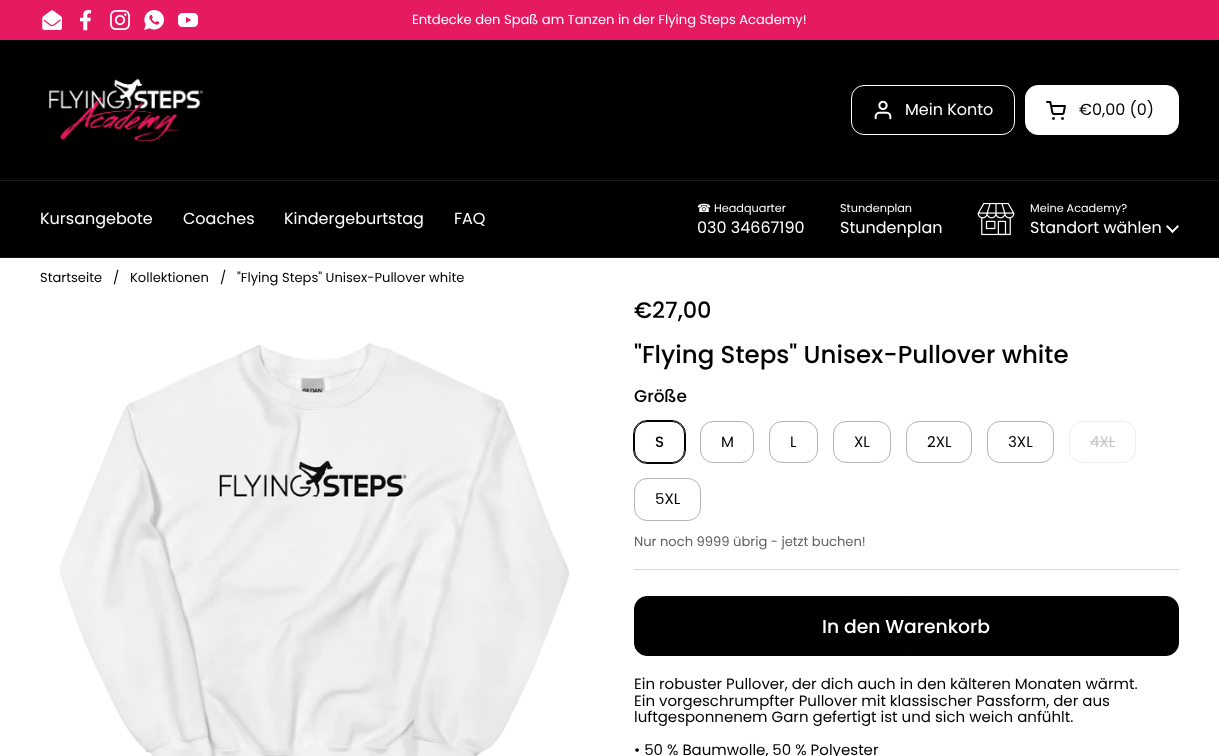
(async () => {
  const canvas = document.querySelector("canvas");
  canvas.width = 1219;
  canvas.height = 756;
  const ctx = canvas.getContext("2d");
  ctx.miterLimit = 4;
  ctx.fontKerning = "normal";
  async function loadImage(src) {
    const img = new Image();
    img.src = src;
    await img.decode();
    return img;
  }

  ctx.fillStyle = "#ffffff";
  ctx.fillRect(0, 0, 1219, 756);
  ctx.fillStyle = "#e61a61";
  ctx.fillRect(0, 0, 1219, 40);
  ctx.drawImage(await loadImage("img/1.png"), 42, 10, 20, 20);
  ctx.drawImage(await loadImage("img/2.png"), 80, 10, 11, 21);
  ctx.drawImage(await loadImage("img/3.png"), 110, 10, 20, 20);
  ctx.drawImage(await loadImage("img/4.png"), 144, 10, 20, 20);
  ctx.drawImage(await loadImage("img/5.png"), 178, 13, 20, 14);
  ctx.fillStyle = "#000000";
  ctx.fillRect(0, 40, 1219, 217);
  ctx.fillStyle = "#1a1a1a";
  ctx.fillRect(0, 180, 1219, 1);
  ctx.drawImage(await loadImage("img/6.png"), 49, 78, 155, 64);
  ctx.beginPath();
  ctx.roundRect(851.5, 85.5, 163, 49, 12.5);
  ctx.strokeStyle = "#ffffff";
  ctx.stroke();
  ctx.drawImage(await loadImage("img/7.png"), 874, 100, 18, 20);
  ctx.fillStyle = "#ffffff";
  ctx.beginPath();
  ctx.roundRect(1025.5, 85.5, 153, 49, 12.5);
  ctx.fill();
  ctx.stroke();
  ctx.drawImage(await loadImage("img/8.png"), 1046, 101, 20, 19);
  ctx.fillStyle = "#1a1a1a";
  ctx.fillRect(0, 257, 1219, 1);
  ctx.drawImage(await loadImage("img/9.png"), 977, 202, 38, 34);
  ctx.drawImage(await loadImage("img/10.png"), 1166, 225, 13, 8);
  ctx.drawImage(await loadImage("img/11.png"), 59, 343, 511, 413);
  ctx.beginPath();
  ctx.roundRect(633.5, 420.5, 52, 43, 13.5);
  ctx.strokeStyle = "#000000";
  ctx.stroke();
  ctx.beginPath();
  ctx.roundRect(634.5, 421.5, 50, 41, 12.5);
  ctx.stroke();
  ctx.beginPath();
  ctx.roundRect(700.5, 421.5, 53, 41, 12.5);
  ctx.strokeStyle = "#b3b3b3";
  ctx.stroke();
  ctx.beginPath();
  ctx.roundRect(769.5, 421.5, 48, 41, 12.5);
  ctx.stroke();
  ctx.beginPath();
  ctx.roundRect(833.5, 421.5, 57, 41, 12.5);
  ctx.stroke();
  ctx.beginPath();
  ctx.roundRect(906.5, 421.5, 65, 41, 12.5);
  ctx.stroke();
  ctx.beginPath();
  ctx.roundRect(987.5, 421.5, 66, 41, 12.5);
  ctx.stroke();
  ctx.beginPath();
  ctx.roundRect(1069.5, 421.5, 66, 41, 12.5);
  ctx.strokeStyle = "#eeeeee";
  ctx.stroke();
  ctx.fillStyle = "#c7c7c7";
  ctx.fillRect(1090, 441, 25, 1);
  ctx.beginPath();
  ctx.roundRect(634.5, 478.5, 66, 42, 12.5);
  ctx.strokeStyle = "#b3b3b3";
  ctx.stroke();
  ctx.fillStyle = "#d9d9d9";
  ctx.fillRect(634, 569, 545, 1);
  ctx.fillStyle = "#000000";
  ctx.beginPath();
  ctx.roundRect(634.5, 596.5, 544, 59, 12.5);
  ctx.fill();
  ctx.strokeStyle = "#000000";
  ctx.stroke();
  ctx.font = "13.1px Poppins";
  ctx.fillStyle = "#ffffff";
  ctx.fillText("Entdecke den Spaß am Tanzen in der Flying Steps Academy!", 412, 24);
  ctx.font = "16px Poppins";
  ctx.fillText("Mein Konto", 905, 115);
  ctx.fillStyle = "#000000";
  ctx.fillText("€0,00 (0)", 1079, 115);
  ctx.fillStyle = "#ffffff";
  for (const [text, x, y] of [
    ["Kursangebote", 40, 224],
    ["Coaches", 183, 224],
    ["Kindergeburtstag", 284, 224],
    ["FAQ", 454, 224],
  ]) {
    ctx.fillText(text, x, y);
  }
  ctx.font = "11.25px DejaVu Sans";
  ctx.fillText("☎", 697, 212);
  ctx.font = "11.25px Poppins";
  ctx.fillText("Headquarter", 714, 212);
  ctx.font = "16px Poppins";
  ctx.fillText("030 34667190", 697, 233);
  ctx.font = "11.25px Poppins";
  ctx.fillText("Stundenplan", 840, 212);
  ctx.font = "16px Poppins";
  ctx.fillText("Stundenplan", 840, 233);
  ctx.font = "11.25px Poppins";
  ctx.fillText("Meine Academy?", 1030, 212);
  ctx.font = "16px Poppins";
  ctx.fillText("Standort wählen", 1030, 233);
  ctx.font = "13.1px Poppins";
  ctx.fillStyle = "#000000";
  for (const [text, x, y] of [
    ["Startseite", 40, 282],
    ["/", 113, 282],
    ["Kollektionen", 130, 282],
    ["/", 220, 282],
    ["\"Flying Steps\" Unisex-Pullover white", 237, 282],
  ]) {
    ctx.fillText(text, x, y);
  }
  ctx.font = "500 22.5px Poppins";
  ctx.fillText("€27,00", 634, 318);
  ctx.font = "500 24.5px Poppins";
  ctx.fillText("\"Flying Steps\" Unisex-Pullover white", 634, 363);
  ctx.font = "500 17px Poppins";
  ctx.fillText("Größe", 634, 402);
  ctx.font = "500 15px Poppins";
  ctx.fillText("S", 655, 447);
  ctx.font = "15px Poppins";
  for (const [text, x, y] of [
    ["M", 721, 447],
    ["L", 790, 447],
    ["XL", 854, 447],
    ["2XL", 927, 447],
    ["3XL", 1008, 447],
  ]) {
    ctx.fillText(text, x, y);
  }
  ctx.fillStyle = "#c7c7c7";
  ctx.fillText("4XL", 1090, 447);
  ctx.fillStyle = "#000000";
  ctx.fillText("5XL", 655, 504);
  ctx.font = "13.1px Poppins";
  ctx.fillStyle = "#616161";
  ctx.fillText("Nur noch 9999 übrig - jetzt buchen!", 634, 546);
  ctx.font = "500 18.75px Poppins";
  ctx.fillStyle = "#ffffff";
  ctx.fillText("In den Warenkorb", 822, 633);
  ctx.font = "15px Poppins";
  ctx.fillStyle = "#000000";
  for (const [text, x, y] of [
    ["Ein robuster Pullover, der dich auch in den kälteren Monaten wärmt.", 634, 689],
    ["Ein vorgeschrumpfter Pullover mit klassischer Passform, der aus", 634, 706],
    ["luftgesponnenem Garn gefertigt ist und sich weich anfühlt.", 634, 722],
    ["• 50 % Baumwolle, 50 % Polyester", 634, 755],
  ]) {
    ctx.fillText(text, x, y);
  }
})();
